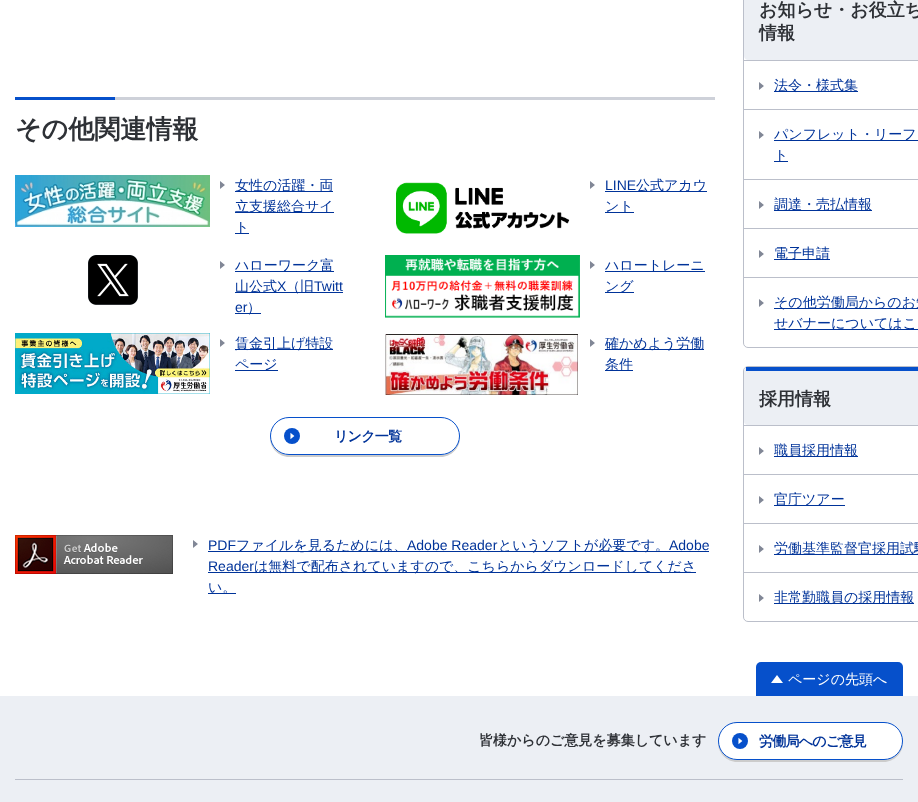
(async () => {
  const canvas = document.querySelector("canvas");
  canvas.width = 918;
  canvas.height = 802;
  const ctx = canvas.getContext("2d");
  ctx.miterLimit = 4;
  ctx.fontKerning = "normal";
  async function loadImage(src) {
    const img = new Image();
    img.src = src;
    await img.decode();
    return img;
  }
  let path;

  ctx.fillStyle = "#ffffff";
  ctx.fillRect(0, 0, 918, 802);
  ctx.fillStyle = "#ced1d9";
  ctx.fillRect(115, 97, 600, 3);
  ctx.fillStyle = "#0650cb";
  ctx.fillRect(15, 97, 100, 3);
  ctx.drawImage(await loadImage("img/1.png"), 15, 175, 195, 52);
  ctx.drawImage(await loadImage("img/2.png"), 220, 181, 5, 8);
  for (const [x, y, w, h, color] of [
    [235, 191, 98, 1, "#003399"],
    [235, 212, 99, 1, "#003399"],
    [235, 233, 14, 1, "#003399"],
  ]) {
    ctx.fillStyle = color;
    ctx.fillRect(x, y, w, h);
  }
  ctx.drawImage(await loadImage("img/3.png"), 396, 182, 174, 52);
  ctx.drawImage(await loadImage("img/4.png"), 590, 181, 5, 8);
  ctx.fillRect(605, 191, 102, 1);
  ctx.fillRect(605, 212, 29, 1);
  ctx.drawImage(await loadImage("img/5.png"), 88, 255, 50, 50);
  ctx.drawImage(await loadImage("img/4.png"), 220, 261, 5, 8);
  for (const [x, y, w, h, color] of [
    [235, 271, 99, 1, "#003399"],
    [235, 292, 108, 1, "#003399"],
    [235, 313, 26, 1, "#003399"],
  ]) {
    ctx.fillStyle = color;
    ctx.fillRect(x, y, w, h);
  }
  ctx.drawImage(await loadImage("img/6.png"), 385, 255, 195, 63);
  ctx.drawImage(await loadImage("img/4.png"), 590, 261, 5, 8);
  ctx.fillRect(605, 271, 100, 1);
  ctx.fillRect(605, 292, 29, 1);
  ctx.drawImage(await loadImage("img/7.png"), 15, 333, 195, 61);
  ctx.drawImage(await loadImage("img/2.png"), 220, 339, 5, 8);
  ctx.fillRect(235, 349, 98, 1);
  ctx.fillRect(235, 370, 43, 1);
  ctx.drawImage(await loadImage("img/8.png"), 385, 334, 193, 61);
  ctx.drawImage(await loadImage("img/4.png"), 590, 339, 5, 8);
  ctx.fillRect(605, 349, 99, 1);
  ctx.fillRect(605, 370, 28, 1);
  ctx.fillStyle = "#cccccc";
  path = new Path2D("M270 437V438C270 448 279 457 289 457H441C451 457 460 448 460 438V437C459 447 451 455 441 455H289C279 455 271 447 270 437Z");
  ctx.fill(path);
  ctx.fillStyle = "#ffffff";
  ctx.beginPath();
  ctx.roundRect(270.5, 417.5, 189, 37, 18.5);
  ctx.fill();
  ctx.strokeStyle = "#0650cb";
  ctx.stroke();
  ctx.drawImage(await loadImage("img/9.png"), 284, 428, 16, 16);
  ctx.drawImage(await loadImage("img/10.png"), 15, 535, 158, 39);
  ctx.drawImage(await loadImage("img/4.png"), 193, 540, 5, 8);
  for (const [x, y, w, h, color] of [
    [208, 551, 501, 1, "#003399"],
    [208, 572, 488, 1, "#003399"],
    [208, 593, 28, 1, "#003399"],
  ]) {
    ctx.fillStyle = color;
    ctx.fillRect(x, y, w, h);
  }
  ctx.beginPath();
  ctx.roundRect(743.5, -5.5, 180, 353, 4.5);
  ctx.strokeStyle = "#bbbfca";
  ctx.stroke();
  ctx.fillStyle = "#eceff4";
  path = new Path2D("M748-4H918V60H748C746 60 744 58 744 56V0C744-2 746-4 748-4Z");
  ctx.fill(path);
  ctx.fillStyle = "#bbbfca";
  ctx.fillRect(744, 60, 174, 1);
  ctx.drawImage(await loadImage("img/11.png"), 759, 82, 5, 8);
  ctx.fillStyle = "#003399";
  ctx.fillRect(774, 91, 84, 1);
  ctx.fillStyle = "#bbbfca";
  ctx.fillRect(744, 109, 174, 1);
  ctx.drawImage(await loadImage("img/12.png"), 759, 131, 5, 8);
  for (const [x, y, w, h, color] of [
    [774, 140, 144, 1, "#003399"],
    [774, 161, 14, 1, "#003399"],
    [744, 179, 174, 1, "#bbbfca"],
  ]) {
    ctx.fillStyle = color;
    ctx.fillRect(x, y, w, h);
  }
  ctx.drawImage(await loadImage("img/12.png"), 759, 201, 5, 8);
  ctx.fillStyle = "#003399";
  ctx.fillRect(774, 210, 98, 1);
  ctx.fillStyle = "#bbbfca";
  ctx.fillRect(744, 228, 174, 1);
  ctx.drawImage(await loadImage("img/12.png"), 759, 250, 5, 8);
  ctx.fillStyle = "#003399";
  ctx.fillRect(774, 259, 56, 1);
  ctx.fillStyle = "#bbbfca";
  ctx.fillRect(744, 277, 174, 1);
  ctx.drawImage(await loadImage("img/12.png"), 759, 299, 5, 8);
  ctx.fillStyle = "#003399";
  ctx.fillRect(774, 308, 144, 1);
  ctx.fillRect(774, 329, 144, 1);
  ctx.beginPath();
  ctx.roundRect(743.5, 366.5, 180, 255, 4.5);
  ctx.stroke();
  ctx.fillStyle = "#eceff4";
  ctx.beginPath();
  ctx.roundRect(744, 367, 174, 58, [4, 0, 0, 4]);
  ctx.fill();
  ctx.fillStyle = "#0650cb";
  ctx.fillRect(746, 367, 172, 4);
  ctx.fillStyle = "#bbbfca";
  ctx.fillRect(744, 425, 174, 1);
  ctx.drawImage(await loadImage("img/11.png"), 759, 447, 5, 8);
  ctx.fillStyle = "#003399";
  ctx.fillRect(774, 456, 84, 1);
  ctx.fillStyle = "#bbbfca";
  ctx.fillRect(744, 474, 174, 1);
  ctx.drawImage(await loadImage("img/12.png"), 759, 496, 5, 8);
  ctx.fillStyle = "#003399";
  ctx.fillRect(774, 505, 71, 1);
  ctx.fillStyle = "#bbbfca";
  ctx.fillRect(744, 523, 174, 1);
  ctx.drawImage(await loadImage("img/12.png"), 759, 545, 5, 8);
  ctx.fillStyle = "#003399";
  ctx.fillRect(774, 554, 144, 1);
  ctx.fillStyle = "#bbbfca";
  ctx.fillRect(744, 572, 174, 1);
  ctx.drawImage(await loadImage("img/11.png"), 759, 594, 5, 8);
  ctx.fillStyle = "#003399";
  ctx.fillRect(774, 603, 140, 1);
  ctx.fillStyle = "#0650cb";
  ctx.beginPath();
  ctx.roundRect(756, 662, 147, 34, [5, 5, 0, 0]);
  ctx.fill();
  ctx.drawImage(await loadImage("img/13.png"), 771, 675, 12, 8);
  ctx.fillStyle = "#eceff4";
  ctx.fillRect(0, 696, 918, 106);
  ctx.fillStyle = "#bbbfca";
  ctx.fillRect(15, 779, 888, 1);
  ctx.fillStyle = "#cccccc";
  path = new Path2D("M718 742V743C718 753 727 762 737 762H884C894 762 903 753 903 743V742C902 752 894 760 884 760H737C727 760 719 752 718 742Z");
  ctx.fill(path);
  ctx.fillStyle = "#ffffff";
  ctx.beginPath();
  ctx.roundRect(718.5, 722.5, 184, 37, 18.5);
  ctx.fill();
  ctx.strokeStyle = "#0650cb";
  ctx.stroke();
  ctx.drawImage(await loadImage("img/9.png"), 732, 733, 16, 16);
  ctx.font = "bold 26px WenQuanYi Zen Hei";
  ctx.fillStyle = "#2e3136";
  ctx.fillText("その他関連情報", 15, 138);
  ctx.font = "500 14px WenQuanYi Zen Hei";
  ctx.fillStyle = "#003399";
  for (const [text, x, y] of [
    ["女性の活躍・両", 235, 190],
    ["立支援総合サイ", 235, 211],
    ["ト", 235, 232],
  ]) {
    ctx.fillText(text, x, y);
  }
  ctx.font = "14px Liberation Sans";
  ctx.fillText("LINE", 605, 190);
  ctx.font = "500 14px WenQuanYi Zen Hei";
  for (const [text, x, y] of [
    ["公式アカウ", 636, 190],
    ["ント", 605, 211],
    ["ハローワーク富", 235, 270],
    ["山公式", 235, 291],
  ]) {
    ctx.fillText(text, x, y);
  }
  ctx.font = "14px Liberation Sans";
  ctx.fillText("X", 277, 291);
  ctx.font = "500 14px WenQuanYi Zen Hei";
  ctx.fillText("（旧", 286, 291);
  ctx.font = "14px Liberation Sans";
  ctx.fillText("Twitt", 314, 291);
  ctx.fillText("er", 235, 312);
  ctx.font = "500 14px WenQuanYi Zen Hei";
  for (const [text, x, y] of [
    ["）", 247, 312],
    ["ハロートレーニ", 605, 270],
    ["ング", 605, 291],
    ["賃金引上げ特設", 235, 348],
    ["ページ", 235, 369],
    ["確かめよう労働", 605, 348],
    ["条件", 605, 369],
  ]) {
    ctx.fillText(text, x, y);
  }
  ctx.letterSpacing = "-0.75px";
  ctx.font = "bold 14px WenQuanYi Zen Hei";
  ctx.fillText("リンク一覧", 334, 441);
  ctx.letterSpacing = "0px";
  ctx.font = "14px Liberation Sans";
  ctx.fillText("PDF", 208, 550);
  ctx.font = "500 14px WenQuanYi Zen Hei";
  ctx.fillText("ファイルを見るためには、", 236, 550);
  ctx.font = "14px Liberation Sans";
  ctx.fillText("Adobe Reader", 407, 550);
  ctx.font = "500 14px WenQuanYi Zen Hei";
  ctx.fillText("というソフトが必要です。", 498, 550);
  ctx.font = "14px Liberation Sans";
  ctx.fillText("Adobe", 669, 550);
  ctx.fillText("Reader", 208, 571);
  ctx.font = "500 14px WenQuanYi Zen Hei";
  ctx.fillText("は無料で配布されていますので、こちらからダウンロードしてくださ", 254, 571);
  ctx.fillText("い。", 208, 592);
  ctx.font = "bold 18px WenQuanYi Zen Hei";
  ctx.fillStyle = "#2e3136";
  ctx.fillText("お知らせ・お役立ち", 759, 16);
  ctx.fillText("情報", 759, 39);
  ctx.font = "500 14px WenQuanYi Zen Hei";
  ctx.fillStyle = "#003399";
  for (const [text, x, y] of [
    ["法令・様式集", 774, 90],
    ["パンフレット・リーフ", 774, 139],
    ["ト", 774, 160],
    ["調達・売払情報", 774, 209],
    ["電子申請", 774, 258],
    ["その他労働局からのお知", 774, 307],
    ["せバナーについてはこ", 774, 328],
  ]) {
    ctx.fillText(text, x, y);
  }
  ctx.font = "bold 18px WenQuanYi Zen Hei";
  ctx.fillStyle = "#2e3136";
  ctx.fillText("採用情報", 759, 405);
  ctx.font = "500 14px WenQuanYi Zen Hei";
  ctx.fillStyle = "#003399";
  for (const [text, x, y] of [
    ["職員採用情報", 774, 455],
    ["官庁ツアー", 774, 504],
    ["労働基準監督官採用試験", 774, 553],
    ["非常勤職員の採用情報", 774, 602],
  ]) {
    ctx.fillText(text, x, y);
  }
  ctx.fillStyle = "#ffffff";
  ctx.fillText("ページの先頭へ", 788, 684);
  ctx.font = "bold 14px WenQuanYi Zen Hei";
  ctx.fillStyle = "#2e3136";
  ctx.fillText("皆様からのご意見を募集しています", 479, 745);
  ctx.letterSpacing = "-0.75px";
  ctx.fillStyle = "#003399";
  ctx.fillText("労働局へのご意見", 759, 746);
})();
